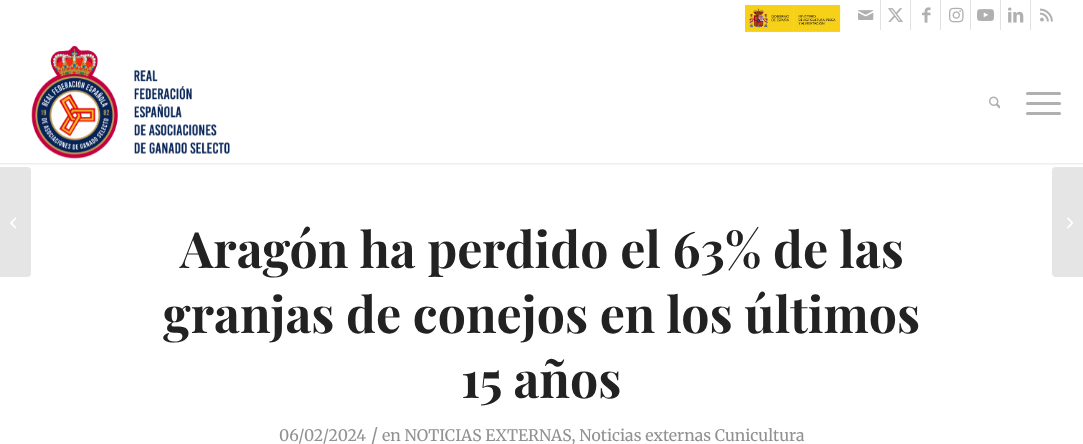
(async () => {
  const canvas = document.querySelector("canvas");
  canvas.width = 1083;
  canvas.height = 444;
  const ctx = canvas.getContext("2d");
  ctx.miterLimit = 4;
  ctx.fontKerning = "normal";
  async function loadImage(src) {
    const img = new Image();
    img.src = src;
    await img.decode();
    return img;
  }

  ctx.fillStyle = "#ffffff";
  ctx.fillRect(0, 0, 1083, 444);
  ctx.save();
  ctx.beginPath();
  ctx.rect(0, 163, 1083, 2);
  ctx.clip();
  ctx.fillStyle = "rgba(0, 0, 0, 0.1)";
  ctx.filter = "blur(1px)";
  ctx.beginPath();
  ctx.rect(-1, -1, 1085, 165);
  ctx.fill();
  ctx.filter = "none";
  ctx.restore();
  ctx.drawImage(await loadImage("img/1.png"), 745, 5, 96, 27);
  ctx.fillStyle = "#e1e1e1";
  ctx.fillRect(880, 0, 1, 30);
  ctx.drawImage(await loadImage("img/2.png"), 858, 10, 16, 10);
  ctx.fillRect(910, 0, 1, 30);
  ctx.drawImage(await loadImage("img/3.png"), 888, 8, 15, 14);
  ctx.fillRect(940, 0, 1, 30);
  ctx.drawImage(await loadImage("img/4.png"), 922, 7, 9, 16);
  ctx.fillRect(970, 0, 1, 30);
  ctx.drawImage(await loadImage("img/5.png"), 949, 7, 15, 16);
  ctx.fillRect(1000, 0, 1, 30);
  ctx.drawImage(await loadImage("img/6.png"), 977, 9, 17, 12);
  ctx.fillRect(1030, 0, 1, 30);
  ctx.drawImage(await loadImage("img/7.png"), 1008, 7, 16, 16);
  ctx.drawImage(await loadImage("img/8.png"), 1040, 8, 13, 14);
  ctx.drawImage(await loadImage("img/9.png"), 31, 46, 199, 113);
  ctx.drawImage(await loadImage("img/10.png"), 989, 96, 11, 13);
  ctx.fillStyle = "#b0b0b0";
  ctx.beginPath();
  ctx.roundRect(1026, 102, 35, 3, 1.5);
  ctx.fill();
  ctx.beginPath();
  ctx.roundRect(1026, 92, 35, 3, 1.5);
  ctx.fill();
  ctx.beginPath();
  ctx.roundRect(1026, 112, 35, 3, 1.5);
  ctx.fill();
  ctx.fillStyle = "#e5e5e5";
  ctx.beginPath();
  ctx.roundRect(0, 167, 31, 110, [0, 4, 4, 0]);
  ctx.fill();
  ctx.drawImage(await loadImage("img/11.png"), 10, 217, 6, 12);
  ctx.beginPath();
  ctx.roundRect(1052, 167, 31, 110, [4, 0, 0, 4]);
  ctx.fill();
  ctx.drawImage(await loadImage("img/12.png"), 1067, 217, 6, 12);
  ctx.font = "bold 50px Playfair Display";
  ctx.fillStyle = "#222222";
  for (const [text, x, y] of [
    ["Aragón ha perdido el 63% de las", 180, 268],
    ["granjas de conejos en los últimos", 163, 333],
    ["15 años", 461, 398],
  ]) {
    ctx.fillText(text, x, y);
  }
  ctx.font = "15.85px Merriweather";
  ctx.fillStyle = "#919191";
  ctx.fillText("06/02/2024", 279, 441);
  ctx.font = "18px Merriweather";
  ctx.fillText("/", 371, 441);
  ctx.font = "15.85px Merriweather";
  ctx.fillText("en NOTICIAS EXTERNAS, Noticias externas Cunicultura", 382, 441);
})();
